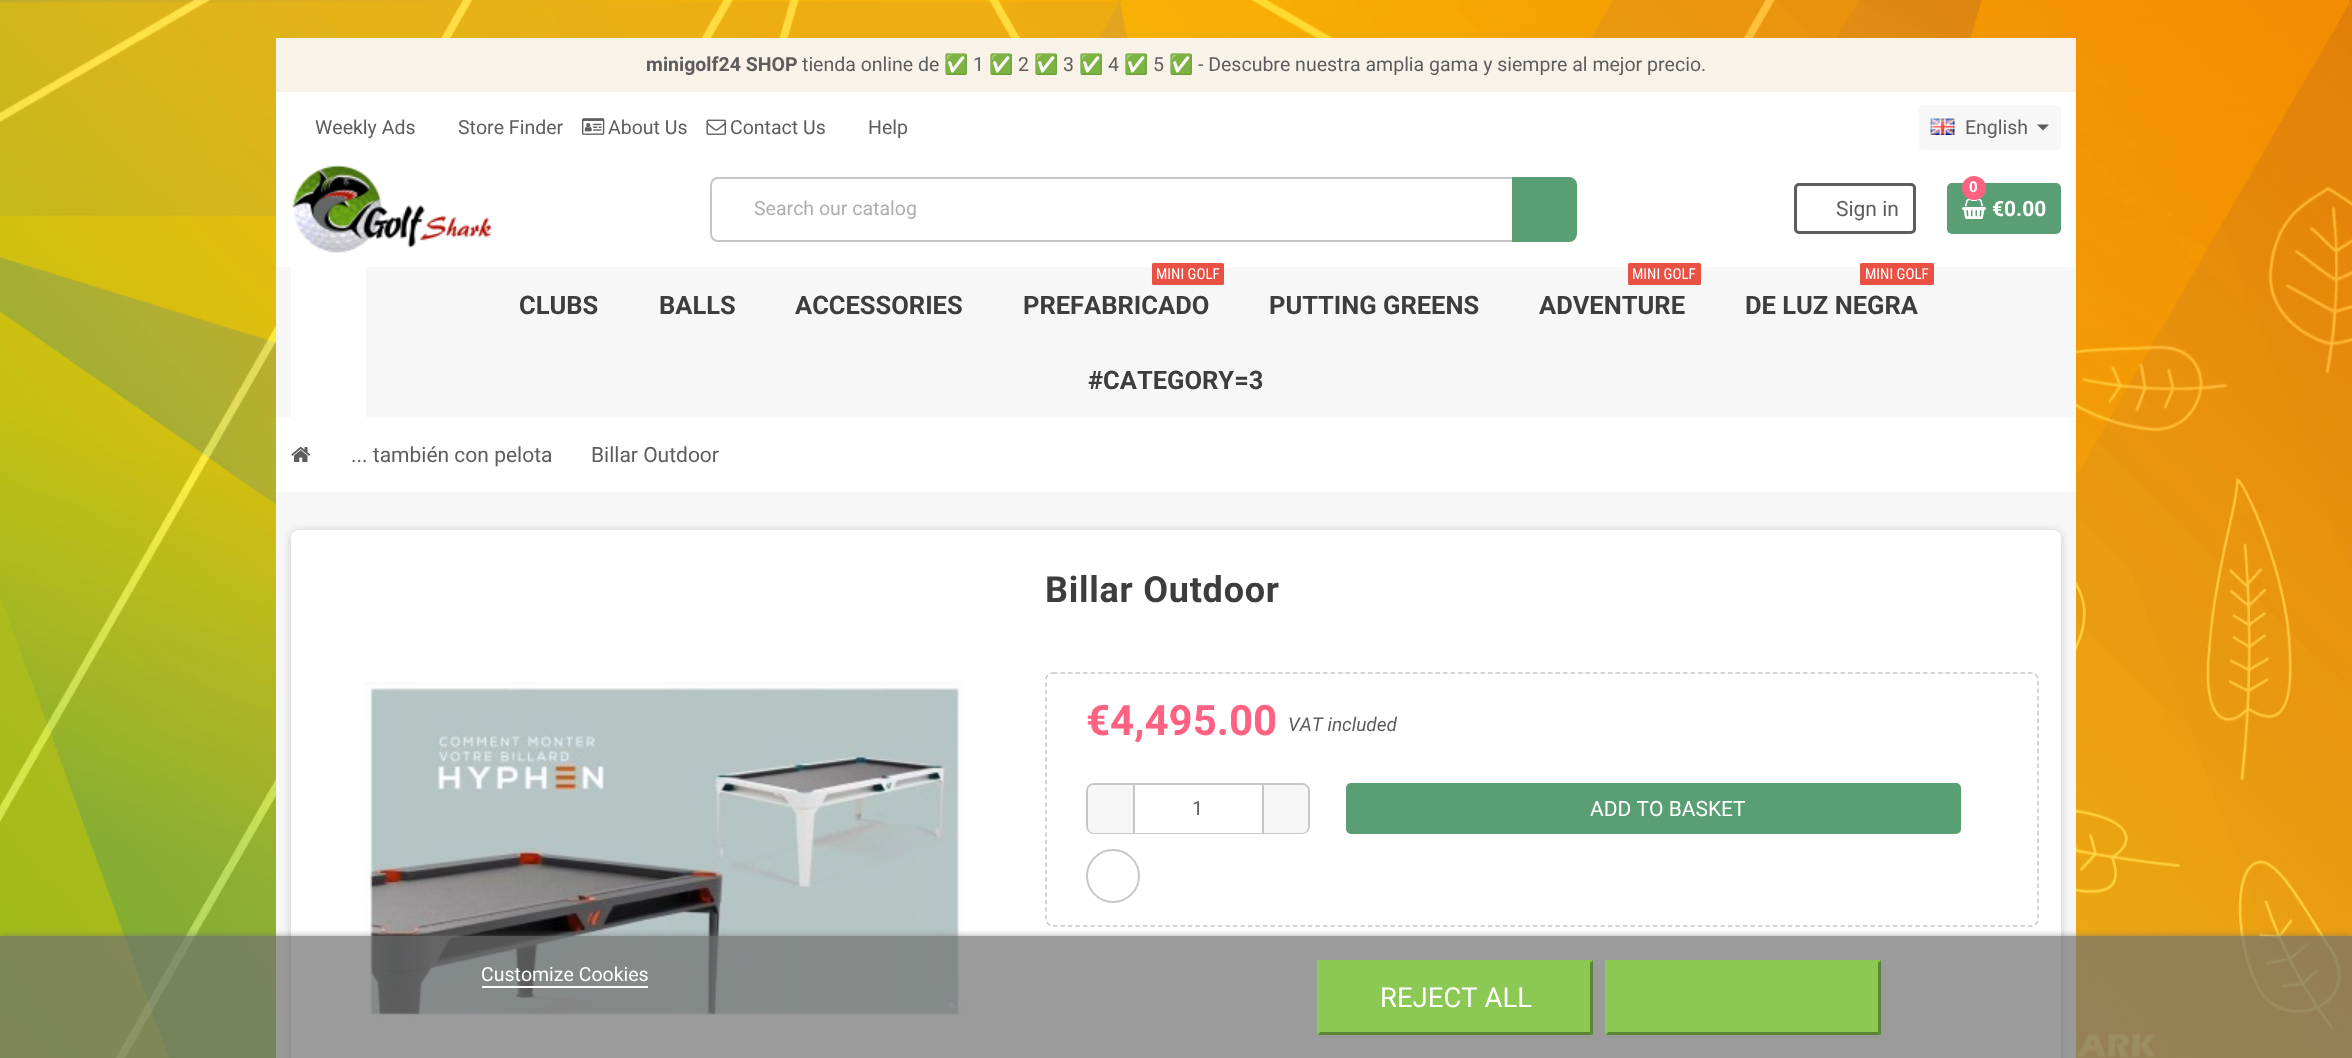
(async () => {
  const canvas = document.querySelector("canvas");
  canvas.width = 2352;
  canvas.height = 1058;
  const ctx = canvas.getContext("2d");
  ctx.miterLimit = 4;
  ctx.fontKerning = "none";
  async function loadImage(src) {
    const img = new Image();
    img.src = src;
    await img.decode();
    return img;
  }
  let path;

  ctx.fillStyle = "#ffffff";
  ctx.fillRect(0, 0, 2352, 1058);
  ctx.drawImage(await loadImage("img/1.png"), 0, 0, 2352, 1058);
  ctx.fillRect(276, 92, 1800, 175);
  ctx.fillStyle = "#f9f2e8";
  ctx.fillRect(276, 38, 1800, 54);
  ctx.drawImage(await loadImage("img/2.png"), 582, 118, 23, 17);
  ctx.drawImage(await loadImage("img/3.png"), 706, 119, 20, 16);
  ctx.fillStyle = "#f7f7f7";
  ctx.beginPath();
  ctx.roundRect(1919, 105, 142, 45, 5);
  ctx.fill();
  ctx.drawImage(await loadImage("img/4.png"), 1930, 118, 25, 17);
  ctx.fillStyle = "#5d5d5d";
  path = new Path2D("M2037 124.5H2049L2043 130.5Z");
  ctx.fill(path);
  ctx.drawImage(await loadImage("img/5.png"), 292, 165, 200, 88);
  ctx.beginPath();
  ctx.roundRect(711, 178, 863, 63, 7);
  ctx.strokeStyle = "#c7c7c7";
  ctx.lineWidth = 2;
  ctx.stroke();
  ctx.fillStyle = "#5a9e74";
  ctx.beginPath();
  ctx.roundRect(1512, 177, 65, 65, [0, 8, 8, 0]);
  ctx.fill();
  ctx.beginPath();
  ctx.roundRect(1795.5, 184.5, 119, 48, 3.5);
  ctx.strokeStyle = "#5d5d5d";
  ctx.lineWidth = 3;
  ctx.stroke();
  ctx.beginPath();
  ctx.roundRect(1947, 183, 114, 51, 5);
  ctx.fill();
  ctx.drawImage(await loadImage("img/6.png"), 1962, 198, 24, 21);
  ctx.fillStyle = "#fd6282";
  ctx.beginPath();
  ctx.arc(1974, 188, 12, 0, Math.PI * 2);
  ctx.fill();
  ctx.fillStyle = "#f7f7f7";
  ctx.fillRect(276, 267, 1800, 150);
  ctx.fillStyle = "#ffffff";
  ctx.fillRect(291, 267, 75, 150);
  ctx.fillStyle = "#e95144";
  ctx.beginPath();
  ctx.roundRect(1152, 263, 72, 22, 1.5);
  ctx.fill();
  ctx.beginPath();
  ctx.roundRect(1628, 263, 73, 22, 1.5);
  ctx.fill();
  ctx.beginPath();
  ctx.roundRect(1860, 263, 74, 22, 1.5);
  ctx.fill();
  ctx.fillStyle = "#f7f7f7";
  ctx.fillRect(276, 492, 1800, 566);
  ctx.fillStyle = "#ffffff";
  ctx.fillRect(276, 417, 1800, 75);
  ctx.drawImage(await loadImage("img/7.png"), 291, 447, 20, 15);
  ctx.fillStyle = "rgba(0, 0, 0, 0.2)";
  ctx.filter = "blur(4px)";
  ctx.beginPath();
  ctx.roundRect(291, 531, 1770, 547, 8);
  ctx.fill();
  ctx.filter = "none";
  ctx.fillStyle = "#ffffff";
  ctx.beginPath();
  ctx.roundRect(291, 530, 1770, 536, 8);
  ctx.fill();
  ctx.drawImage(await loadImage("img/8.png"), 364, 682, 600, 338);
  path = new Path2D("M1053 673H2031C2034.5 673 2038 676 2038 679.5V919.5C2038 923 2034.5 926 2031 926H1053C1049.5 926 1046 923 1046 919.5V679.5C1046 676 1049.5 673 1053 673Z");
  ctx.strokeStyle = "#c7c7c7";
  ctx.lineWidth = 1.5;
  ctx.setLineDash([4.5, 3]);
  ctx.stroke(path);
  ctx.beginPath();
  ctx.roundRect(1087, 784, 222, 49, 7);
  ctx.lineWidth = 2;
  ctx.setLineDash([]);
  ctx.stroke();
  ctx.fillStyle = "#f7f7f7";
  ctx.beginPath();
  ctx.roundRect(1088, 785, 45, 48, [6, 0, 0, 6]);
  ctx.fill();
  ctx.fillStyle = "#ffffff";
  ctx.fillRect(1135, 832, 127, 1);
  ctx.fillStyle = "#f7f7f7";
  ctx.beginPath();
  ctx.roundRect(1263, 785, 45, 48, [0, 6, 6, 0]);
  ctx.fill();
  ctx.fillStyle = "#c7c7c7";
  ctx.fillRect(1262, 785, 2, 48);
  ctx.fillRect(1133, 785, 2, 48);
  ctx.fillStyle = "#5a9e74";
  ctx.beginPath();
  ctx.roundRect(1346, 783, 615, 51, 5);
  ctx.fill();
  ctx.beginPath();
  ctx.arc(1113, 876, 26, 0, Math.PI * 2);
  ctx.stroke();
  ctx.save();
  ctx.beginPath();
  ctx.rect(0, 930, 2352, 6);
  ctx.clip();
  ctx.fillStyle = "#707070";
  ctx.filter = "blur(4px)";
  ctx.beginPath();
  ctx.rect(0, 938, 2352, 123);
  ctx.fill();
  ctx.filter = "none";
  ctx.restore();
  for (const [x, y, w, h, color] of [
    [0, 936, 2352, 122, "rgba(112, 112, 112, 0.7)"],
    [482, 986, 166, 2, "#ffffff"],
    [1317, 960, 276, 75, "#8bc954"],
  ]) {
    ctx.fillStyle = color;
    ctx.fillRect(x, y, w, h);
  }
  ctx.fillStyle = "#5d8638";
  path = new Path2D("M1593 960V1035L1590 1032V963Z");
  ctx.fill(path);
  path = new Path2D("M1593 1035H1317L1320 1032H1590Z");
  ctx.fill(path);
  ctx.fillStyle = "#8bc954";
  path = new Path2D("M1317 1035V960L1320 963V1032Z");
  ctx.fill(path);
  ctx.fillRect(1605, 960, 276, 75);
  ctx.fillStyle = "#5d8638";
  path = new Path2D("M1881 960V1035L1878 1032V963Z");
  ctx.fill(path);
  path = new Path2D("M1881 1035H1605L1608 1032H1878Z");
  ctx.fill(path);
  ctx.fillStyle = "#8bc954";
  path = new Path2D("M1605 1035V960L1608 963V1032Z");
  ctx.fill(path);
  ctx.font = "bold 19.5px Roboto";
  ctx.fillStyle = "#5d5d5d";
  ctx.fillText("minigolf24 SHOP", 646, 71);
  ctx.font = "19.5px Roboto";
  ctx.fillText("tienda online de", 802, 71);
  ctx.font = "19.5px Noto Color Emoji";
  ctx.fillText("✅", 944, 71);
  ctx.font = "19.5px Roboto";
  ctx.fillText("1", 973, 71);
  ctx.font = "19.5px Noto Color Emoji";
  ctx.fillText("✅", 989, 71);
  ctx.font = "19.5px Roboto";
  ctx.fillText("2", 1018, 71);
  ctx.font = "19.5px Noto Color Emoji";
  ctx.fillText("✅", 1034, 71);
  ctx.font = "19.5px Roboto";
  ctx.fillText("3", 1063, 71);
  ctx.font = "19.5px Noto Color Emoji";
  ctx.fillText("✅", 1079, 71);
  ctx.font = "19.5px Roboto";
  ctx.fillText("4", 1108, 71);
  ctx.font = "19.5px Noto Color Emoji";
  ctx.fillText("✅", 1124, 71);
  ctx.font = "19.5px Roboto";
  ctx.fillText("5", 1153, 71);
  ctx.font = "19.5px Noto Color Emoji";
  ctx.fillText("✅", 1169, 71);
  ctx.font = "19.5px Roboto";
  for (const [text, x, y] of [
    ["- Descubre nuestra amplia gama y siempre al mejor precio.", 1198, 71],
    ["Weekly Ads", 315, 134],
    ["Store Finder", 458, 134],
    ["About Us", 608, 134],
    ["Contact Us", 730, 134],
    ["Help", 868, 134],
    ["English", 1965, 134],
  ]) {
    ctx.fillText(text, x, y);
  }
  ctx.fillStyle = "#aeaeae";
  ctx.fillText("Search our catalog", 754, 215);
  ctx.font = "21px Roboto";
  ctx.fillStyle = "#5d5d5d";
  ctx.fillText("Sign in", 1836, 216);
  ctx.font = "bold 15px Roboto";
  ctx.fillStyle = "#ffffff";
  ctx.fillText("0", 1969, 192);
  ctx.font = "bold 21px Roboto";
  ctx.fillText("€0.00", 1992, 216);
  ctx.font = "bold 25.5px 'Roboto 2'";
  ctx.fillStyle = "#3d3d3d";
  for (const [text, x, y] of [
    ["CLUBS", 519, 314],
    ["BALLS", 659, 314],
    ["ACCESSORIES", 795, 314],
  ]) {
    ctx.fillText(text, x, y);
  }
  ctx.font = "15px Roboto Condensed";
  ctx.fillStyle = "#ffffff";
  ctx.fillText("MINI GOLF", 1156, 279);
  ctx.font = "bold 25.5px 'Roboto 2'";
  ctx.fillStyle = "#3d3d3d";
  ctx.fillText("PREFABRICADO", 1023, 314);
  ctx.fillText("PUTTING GREENS", 1269, 314);
  ctx.font = "15px Roboto Condensed";
  ctx.fillStyle = "#ffffff";
  ctx.fillText("MINI GOLF", 1632, 279);
  ctx.font = "bold 25.5px 'Roboto 2'";
  ctx.fillStyle = "#3d3d3d";
  ctx.fillText("ADVENTURE", 1539, 314);
  ctx.font = "15px Roboto Condensed";
  ctx.fillStyle = "#ffffff";
  ctx.fillText("MINI GOLF", 1865, 279);
  ctx.font = "bold 25.5px 'Roboto 2'";
  ctx.fillStyle = "#3d3d3d";
  ctx.fillText("DE LUZ NEGRA", 1745, 314);
  ctx.fillText("#CATEGORY=3", 1088, 389);
  ctx.font = "21px Roboto";
  ctx.fillStyle = "#5d5d5d";
  ctx.fillText("... también con pelota", 351, 462);
  ctx.fillText("Billar Outdoor", 591, 462);
  ctx.letterSpacing = "0.75px";
  ctx.font = "bold 36px 'Roboto 2'";
  ctx.fillStyle = "#3d3d3d";
  ctx.fillText("Billar Outdoor", 1045, 602);
  ctx.letterSpacing = "0px";
  ctx.font = "bold 42px Roboto";
  ctx.fillStyle = "#fd6282";
  ctx.fillText("€4,495.00", 1086, 735);
  ctx.font = "italic 19px Roboto";
  ctx.fillStyle = "#5d5d5d";
  ctx.fillText("VAT included", 1288, 731);
  ctx.font = "19.5px Roboto";
  ctx.fillText("1", 1192, 815);
  ctx.font = "21px Roboto";
  ctx.fillStyle = "#ffffff";
  ctx.fillText("ADD TO BASKET", 1590, 816);
  ctx.font = "19.5px Roboto";
  ctx.fillText("Customize Cookies", 481, 981);
  ctx.font = "27.5px Roboto";
  ctx.fillText("REJECT ALL", 1380, 1007);
})();
